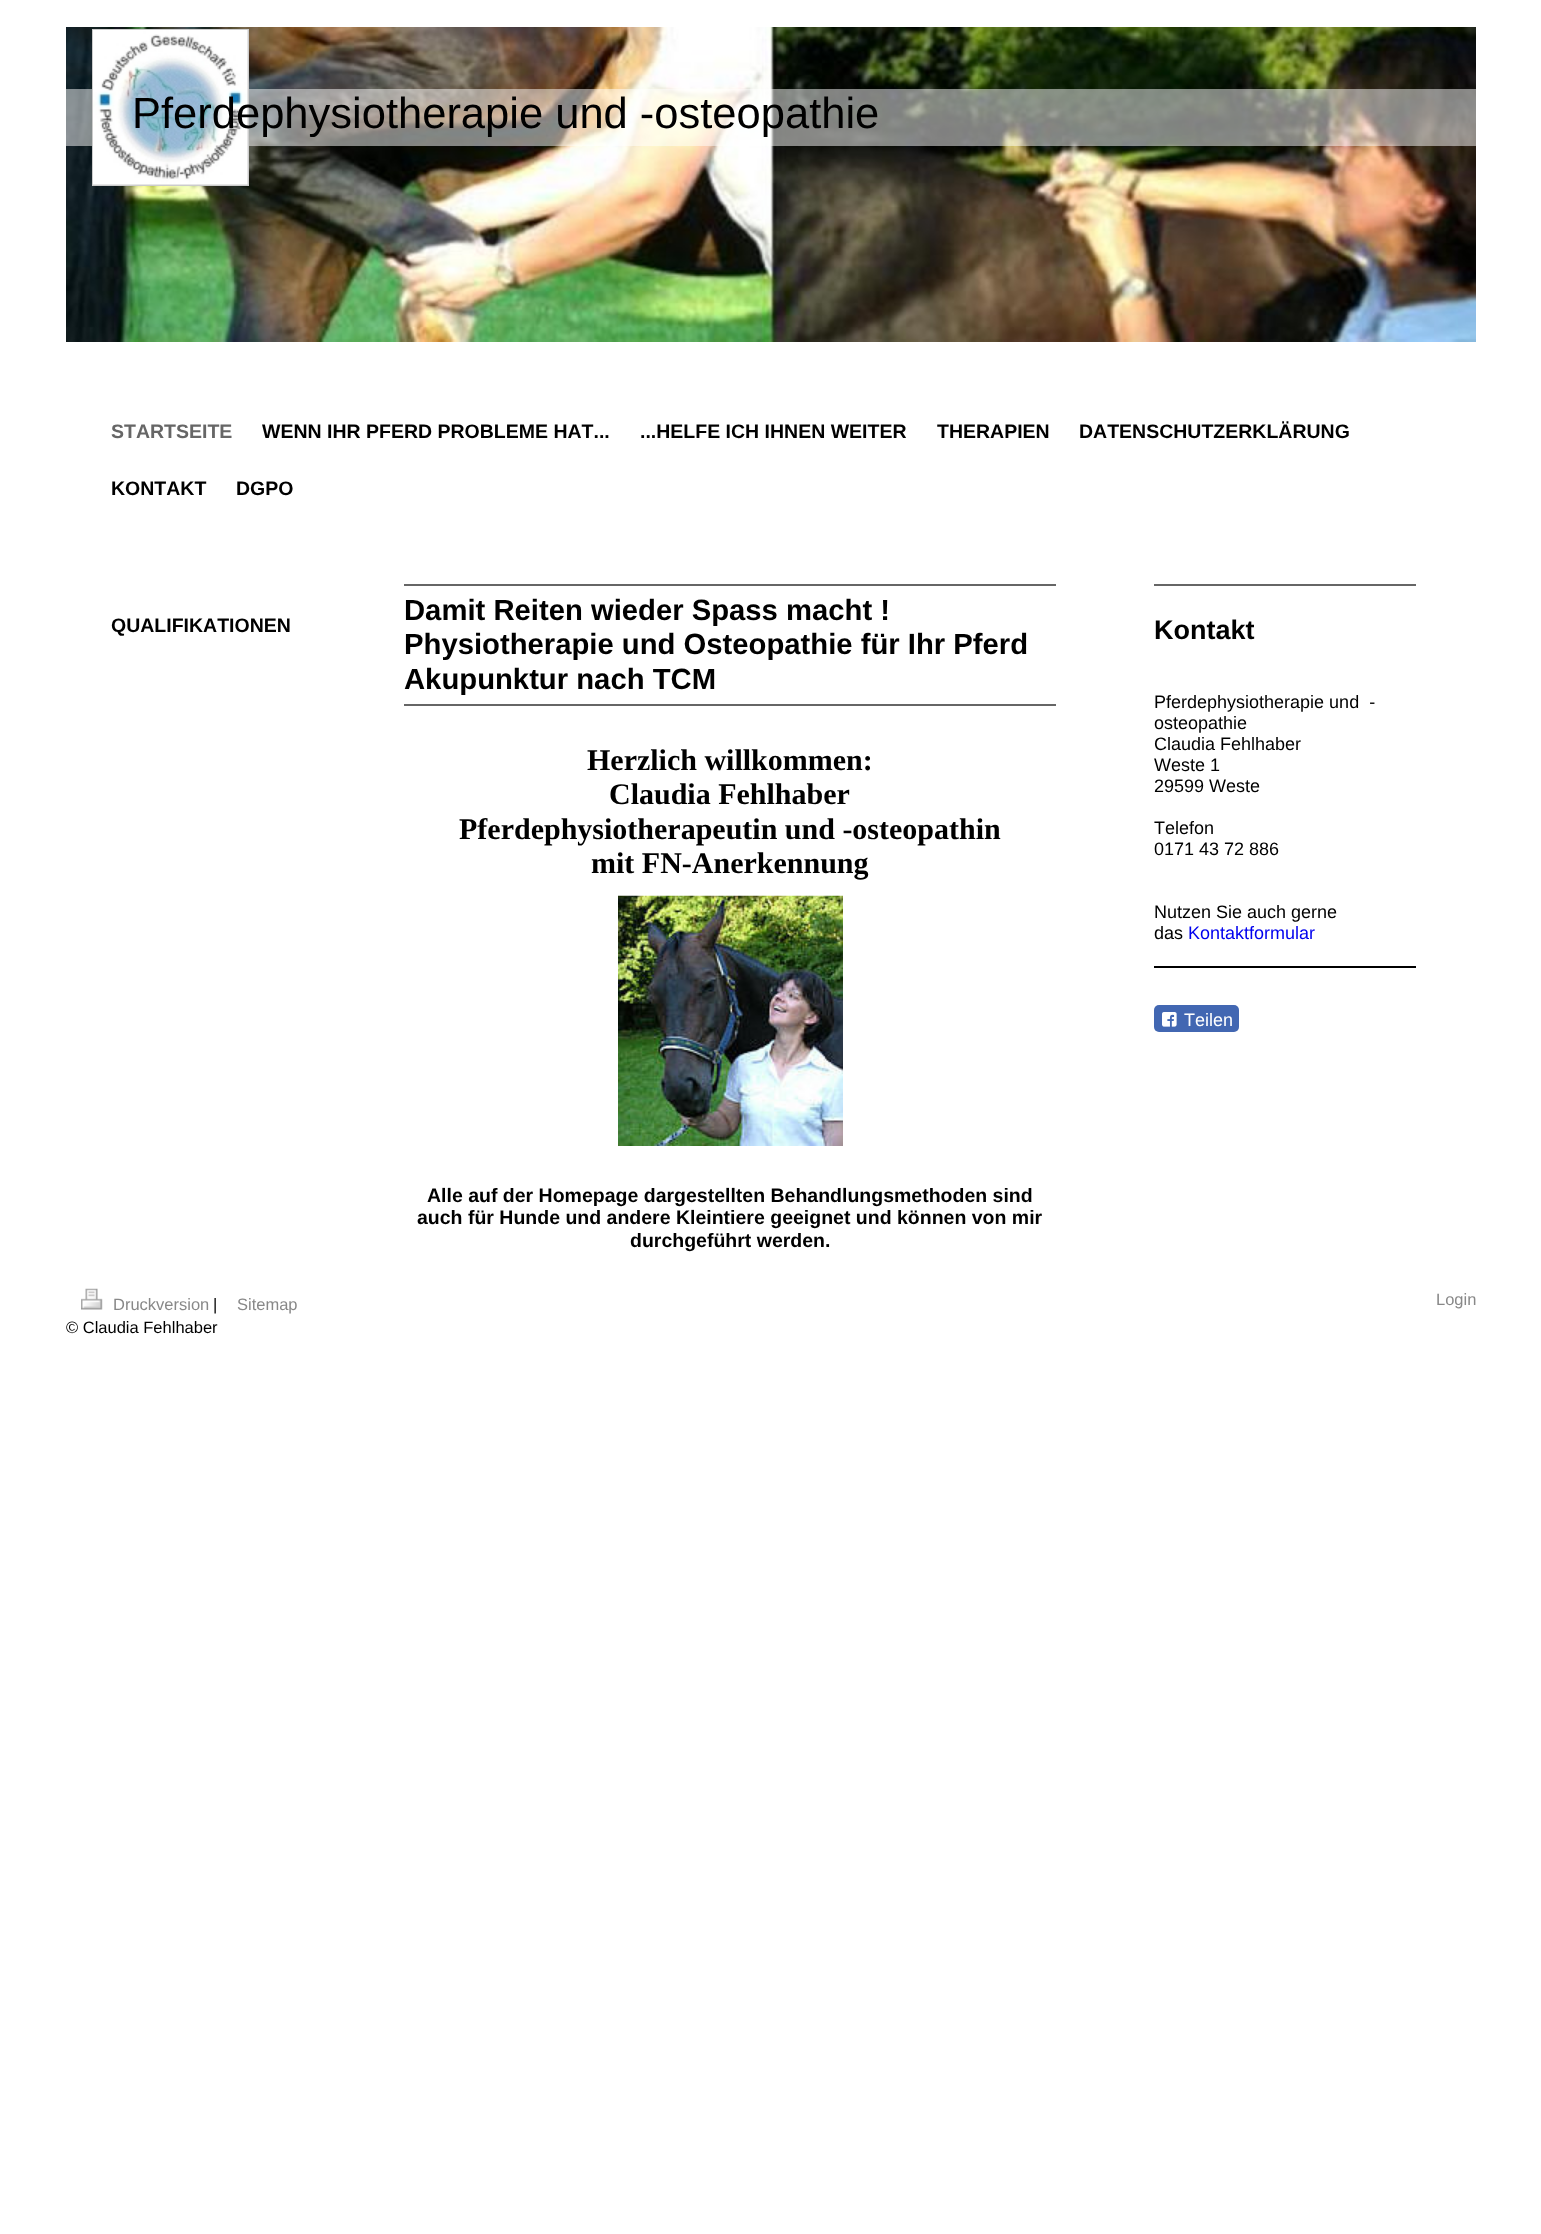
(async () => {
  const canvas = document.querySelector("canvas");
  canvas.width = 1541;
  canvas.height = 2234;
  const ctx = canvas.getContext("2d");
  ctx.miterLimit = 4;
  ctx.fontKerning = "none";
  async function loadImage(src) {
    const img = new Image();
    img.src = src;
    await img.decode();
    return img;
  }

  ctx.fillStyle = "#ffffff";
  ctx.fillRect(0, 0, 1541, 2234);
  ctx.drawImage(await loadImage("img/1.png"), 66, 27, 1410, 315);
  ctx.fillStyle = "rgba(255, 255, 255, 0.5)";
  ctx.fillRect(66, 89, 1410, 57);
  ctx.strokeStyle = "#cccccc";
  ctx.lineWidth = 2;
  ctx.strokeRect(93, 30, 155, 155);
  ctx.drawImage(await loadImage("img/2.png"), 93, 30, 155, 155);
  ctx.fillStyle = "#666666";
  ctx.fillRect(404, 584, 652, 2);
  ctx.fillRect(404, 704, 652, 2);
  ctx.drawImage(await loadImage("img/3.png"), 618, 895, 225, 251);
  ctx.fillRect(1154, 584, 262, 2);
  ctx.fillStyle = "#000000";
  ctx.fillRect(1154, 966, 262, 2);
  ctx.fillStyle = "#4267b2";
  ctx.beginPath();
  ctx.roundRect(1154, 1005, 85, 27, 5);
  ctx.fill();
  ctx.drawImage(await loadImage("img/4.png"), 1162, 1012, 15, 15);
  ctx.drawImage(await loadImage("img/5.png"), 81, 1288, 22, 22);
  ctx.font = "43.5px Liberation Sans";
  ctx.fillStyle = "#000000";
  ctx.fillText("Pferdephysiotherapie und -osteopathie", 132, 128);
  ctx.font = "bold 19.5px Liberation Sans";
  ctx.fillStyle = "#666666";
  ctx.fillText("STARTSEITE", 111, 438);
  ctx.fillStyle = "#000000";
  for (const [text, x, y] of [
    ["WENN IHR PFERD PROBLEME HAT...", 262, 438],
    ["...HELFE ICH IHNEN WEITER", 640, 438],
    ["THERAPIEN", 937, 438],
    ["DATENSCHUTZERKLÄRUNG", 1079, 438],
    ["KONTAKT", 111, 495],
    ["DGPO", 236, 495],
    ["QUALIFIKATIONEN", 111, 632],
  ]) {
    ctx.fillText(text, x, y);
  }
  ctx.font = "bold 29.25px Liberation Sans";
  for (const [text, x, y] of [
    ["Damit Reiten wieder Spass macht !", 404, 620],
    ["Physiotherapie und Osteopathie für Ihr Pferd", 404, 654],
    ["Akupunktur nach TCM", 404, 689],
  ]) {
    ctx.fillText(text, x, y);
  }
  ctx.font = "bold 30px Liberation Serif";
  for (const [text, x, y] of [
    ["Herzlich willkommen:", 587, 770],
    ["Claudia Fehlhaber", 609, 804],
    ["Pferdephysiotherapeutin und -osteopathin", 459, 839],
    ["mit FN-Anerkennung", 591, 873],
  ]) {
    ctx.fillText(text, x, y);
  }
  ctx.font = "bold 19.5px Liberation Sans";
  for (const [text, x, y] of [
    ["Alle auf der Homepage dargestellten Behandlungsmethoden sind", 427, 1202],
    ["auch für Hunde und andere Kleintiere geeignet und können von mir", 417, 1224],
    ["durchgeführt werden.", 630, 1247],
  ]) {
    ctx.fillText(text, x, y);
  }
  ctx.font = "bold 27px Liberation Sans";
  ctx.fillText("Kontakt", 1154, 639);
  ctx.font = "18px Liberation Sans";
  for (const [text, x, y] of [
    ["Pferdephysiotherapie und  -", 1154, 708],
    ["osteopathie", 1154, 729],
    ["Claudia Fehlhaber", 1154, 750],
    ["Weste 1", 1154, 771],
    ["29599 Weste", 1154, 792],
    ["Telefon", 1154, 834],
    ["0171 43 72 886", 1154, 855],
    ["Nutzen Sie auch gerne", 1154, 918],
    ["das", 1154, 939],
  ]) {
    ctx.fillText(text, x, y);
  }
  ctx.fillStyle = "#0000ee";
  ctx.fillText("Kontaktformular", 1188, 939);
  ctx.fillStyle = "#ffffff";
  ctx.fillText("Teilen", 1184, 1026);
  ctx.font = "16.5px Liberation Sans";
  ctx.fillStyle = "#888888";
  ctx.fillText("Druckversion", 113, 1310);
  ctx.fillStyle = "#000000";
  ctx.fillText("|", 213, 1310);
  ctx.fillStyle = "#888888";
  ctx.fillText("Sitemap", 237, 1310);
  ctx.fillStyle = "#000000";
  ctx.fillText("© Claudia Fehlhaber", 66, 1333);
  ctx.fillStyle = "#888888";
  ctx.fillText("Login", 1436, 1305);
})();
